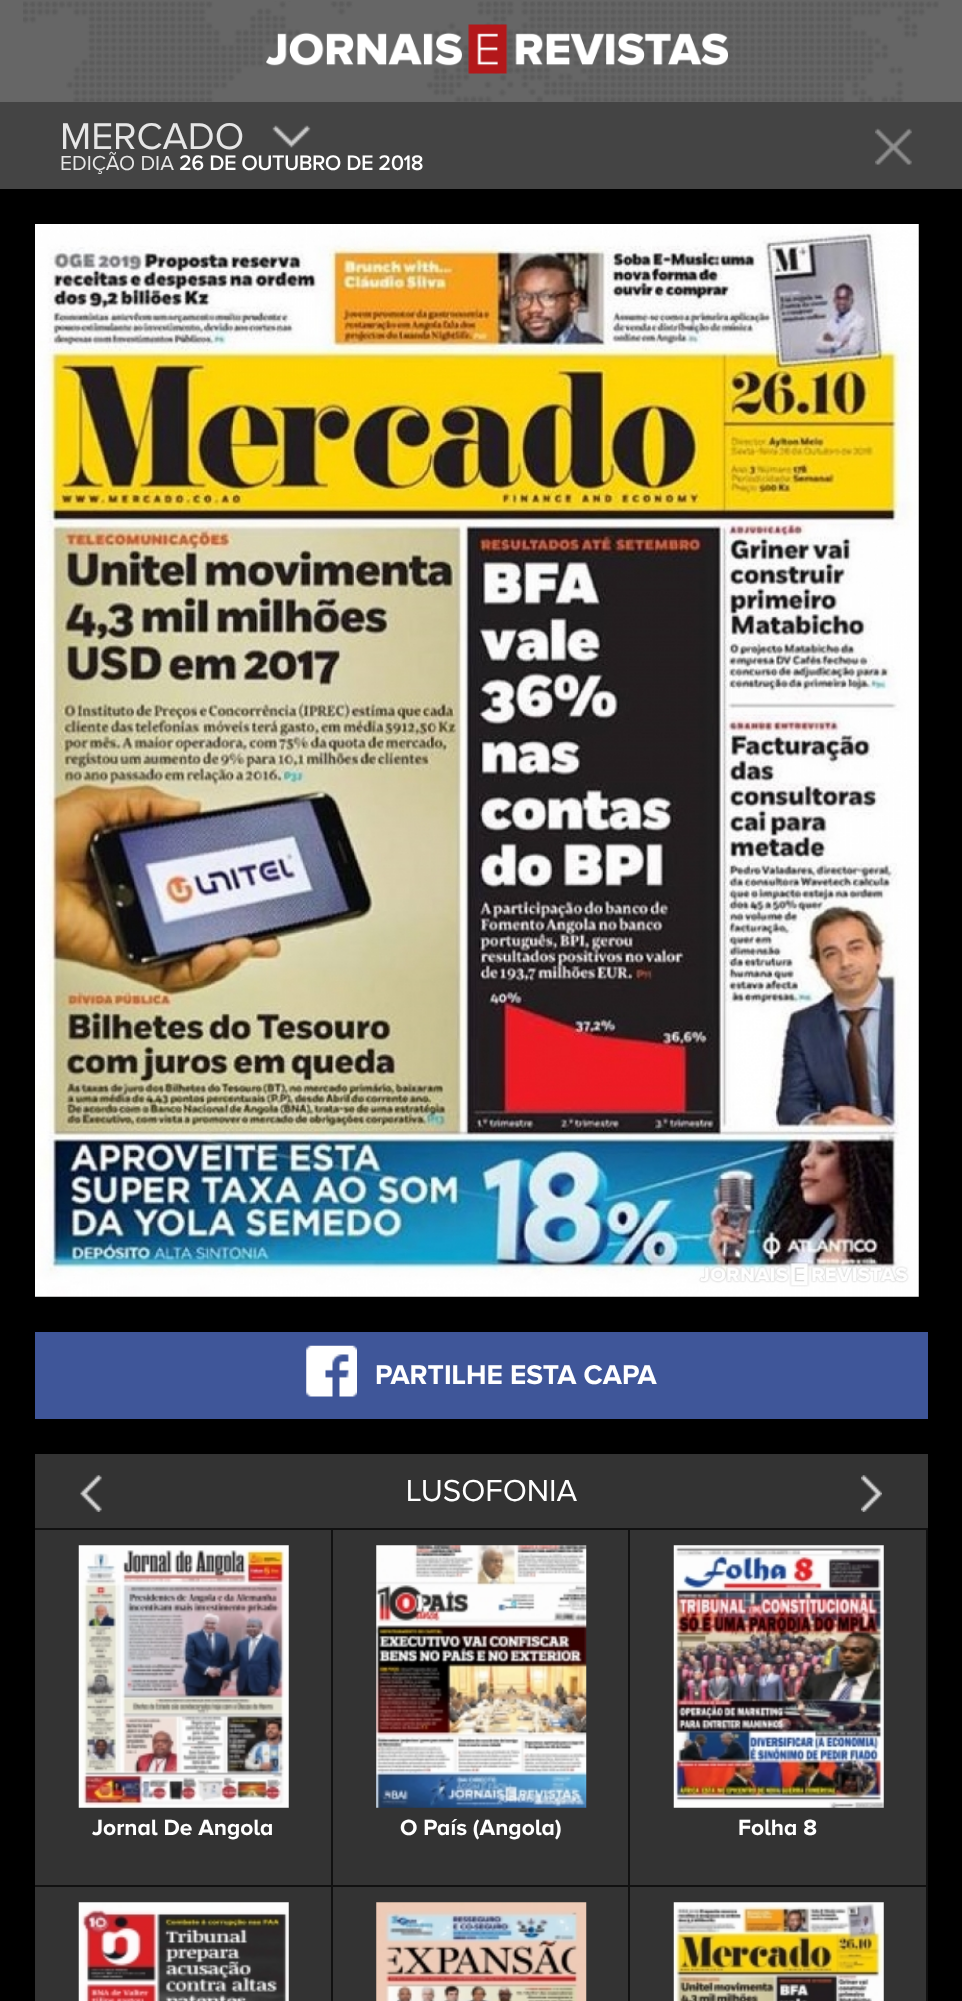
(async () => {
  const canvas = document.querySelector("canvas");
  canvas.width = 962;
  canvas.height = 2001;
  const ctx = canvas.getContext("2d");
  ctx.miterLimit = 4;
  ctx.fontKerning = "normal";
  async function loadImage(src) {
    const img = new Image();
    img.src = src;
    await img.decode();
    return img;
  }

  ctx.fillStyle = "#000000";
  ctx.fillRect(0, 0, 962, 2001);
  ctx.fillStyle = "#666666";
  ctx.fillRect(0, 0, 962, 102);
  ctx.drawImage(await loadImage("img/1.png"), 23, 1, 916, 101);
  ctx.drawImage(await loadImage("img/2.png"), 266, 24, 462, 50);
  ctx.fillStyle = "#444444";
  ctx.fillRect(0, 102, 962, 87);
  ctx.drawImage(await loadImage("img/3.png"), 272, 125, 39, 23);
  ctx.drawImage(await loadImage("img/4.png"), 875, 128, 37, 37);
  ctx.drawImage(await loadImage("img/5.png"), 35, 224, 884, 1073);
  ctx.fillStyle = "#3f5699";
  ctx.fillRect(35, 1332, 893, 87);
  ctx.drawImage(await loadImage("img/6.png"), 306, 1345, 51, 52);
  ctx.fillStyle = "#333333";
  ctx.fillRect(35, 1454, 893, 74);
  ctx.fillStyle = "#111111";
  ctx.fillRect(35, 1528, 893, 2);
  ctx.drawImage(await loadImage("img/7.png"), 80, 1475, 22, 37);
  ctx.drawImage(await loadImage("img/8.png"), 861, 1475, 21, 37);
  for (const [x, y, w, h, color] of [
    [35, 1530, 296, 355, "#333333"],
    [331, 1530, 2, 471, "#111111"],
    [35, 1885, 298, 2, "#111111"],
  ]) {
    ctx.fillStyle = color;
    ctx.fillRect(x, y, w, h);
  }
  ctx.drawImage(await loadImage("img/9.png"), 78, 1545, 211, 263);
  for (const [x, y, w, h, color] of [
    [333, 1530, 295, 355, "#333333"],
    [628, 1530, 2, 471, "#111111"],
    [333, 1885, 297, 2, "#111111"],
  ]) {
    ctx.fillStyle = color;
    ctx.fillRect(x, y, w, h);
  }
  ctx.drawImage(await loadImage("img/10.png"), 376, 1545, 211, 263);
  for (const [x, y, w, h, color] of [
    [630, 1530, 296, 355, "#333333"],
    [926, 1530, 2, 471, "#111111"],
    [630, 1885, 298, 2, "#111111"],
  ]) {
    ctx.fillStyle = color;
    ctx.fillRect(x, y, w, h);
  }
  ctx.drawImage(await loadImage("img/11.png"), 673, 1545, 211, 263);
  ctx.fillStyle = "#333333";
  ctx.fillRect(35, 1887, 296, 114);
  ctx.drawImage(await loadImage("img/12.png"), 78, 1902, 211, 99);
  ctx.fillRect(333, 1887, 295, 114);
  ctx.drawImage(await loadImage("img/13.png"), 376, 1902, 211, 99);
  ctx.fillRect(630, 1887, 296, 114);
  ctx.drawImage(await loadImage("img/14.png"), 673, 1902, 211, 99);
  ctx.font = "38.5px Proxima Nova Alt";
  ctx.fillStyle = "#e6e6e6";
  ctx.fillText("MERCADO", 60, 149);
  ctx.font = "21px Proxima Nova Alt";
  ctx.fillText("EDIÇÃO DIA", 60, 170);
  ctx.font = "bold 21px Proxima Nova Alt";
  ctx.fillStyle = "#ffffff";
  ctx.fillText("26 DE OUTUBRO DE 2018", 179, 170);
  ctx.font = "bold 28px 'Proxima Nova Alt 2'";
  ctx.fillText("PARTILHE ESTA CAPA", 375, 1384);
  ctx.font = "31.5px Proxima Nova Alt";
  ctx.fillText("LUSOFONIA", 406, 1501);
  ctx.font = "bold 22.75px 'Proxima Nova Alt 2'";
  for (const [text, x, y] of [
    ["Jornal De Angola", 92, 1835],
    ["O País (Angola)", 400, 1835],
    ["Folha 8", 738, 1835],
  ]) {
    ctx.fillText(text, x, y);
  }
})();
